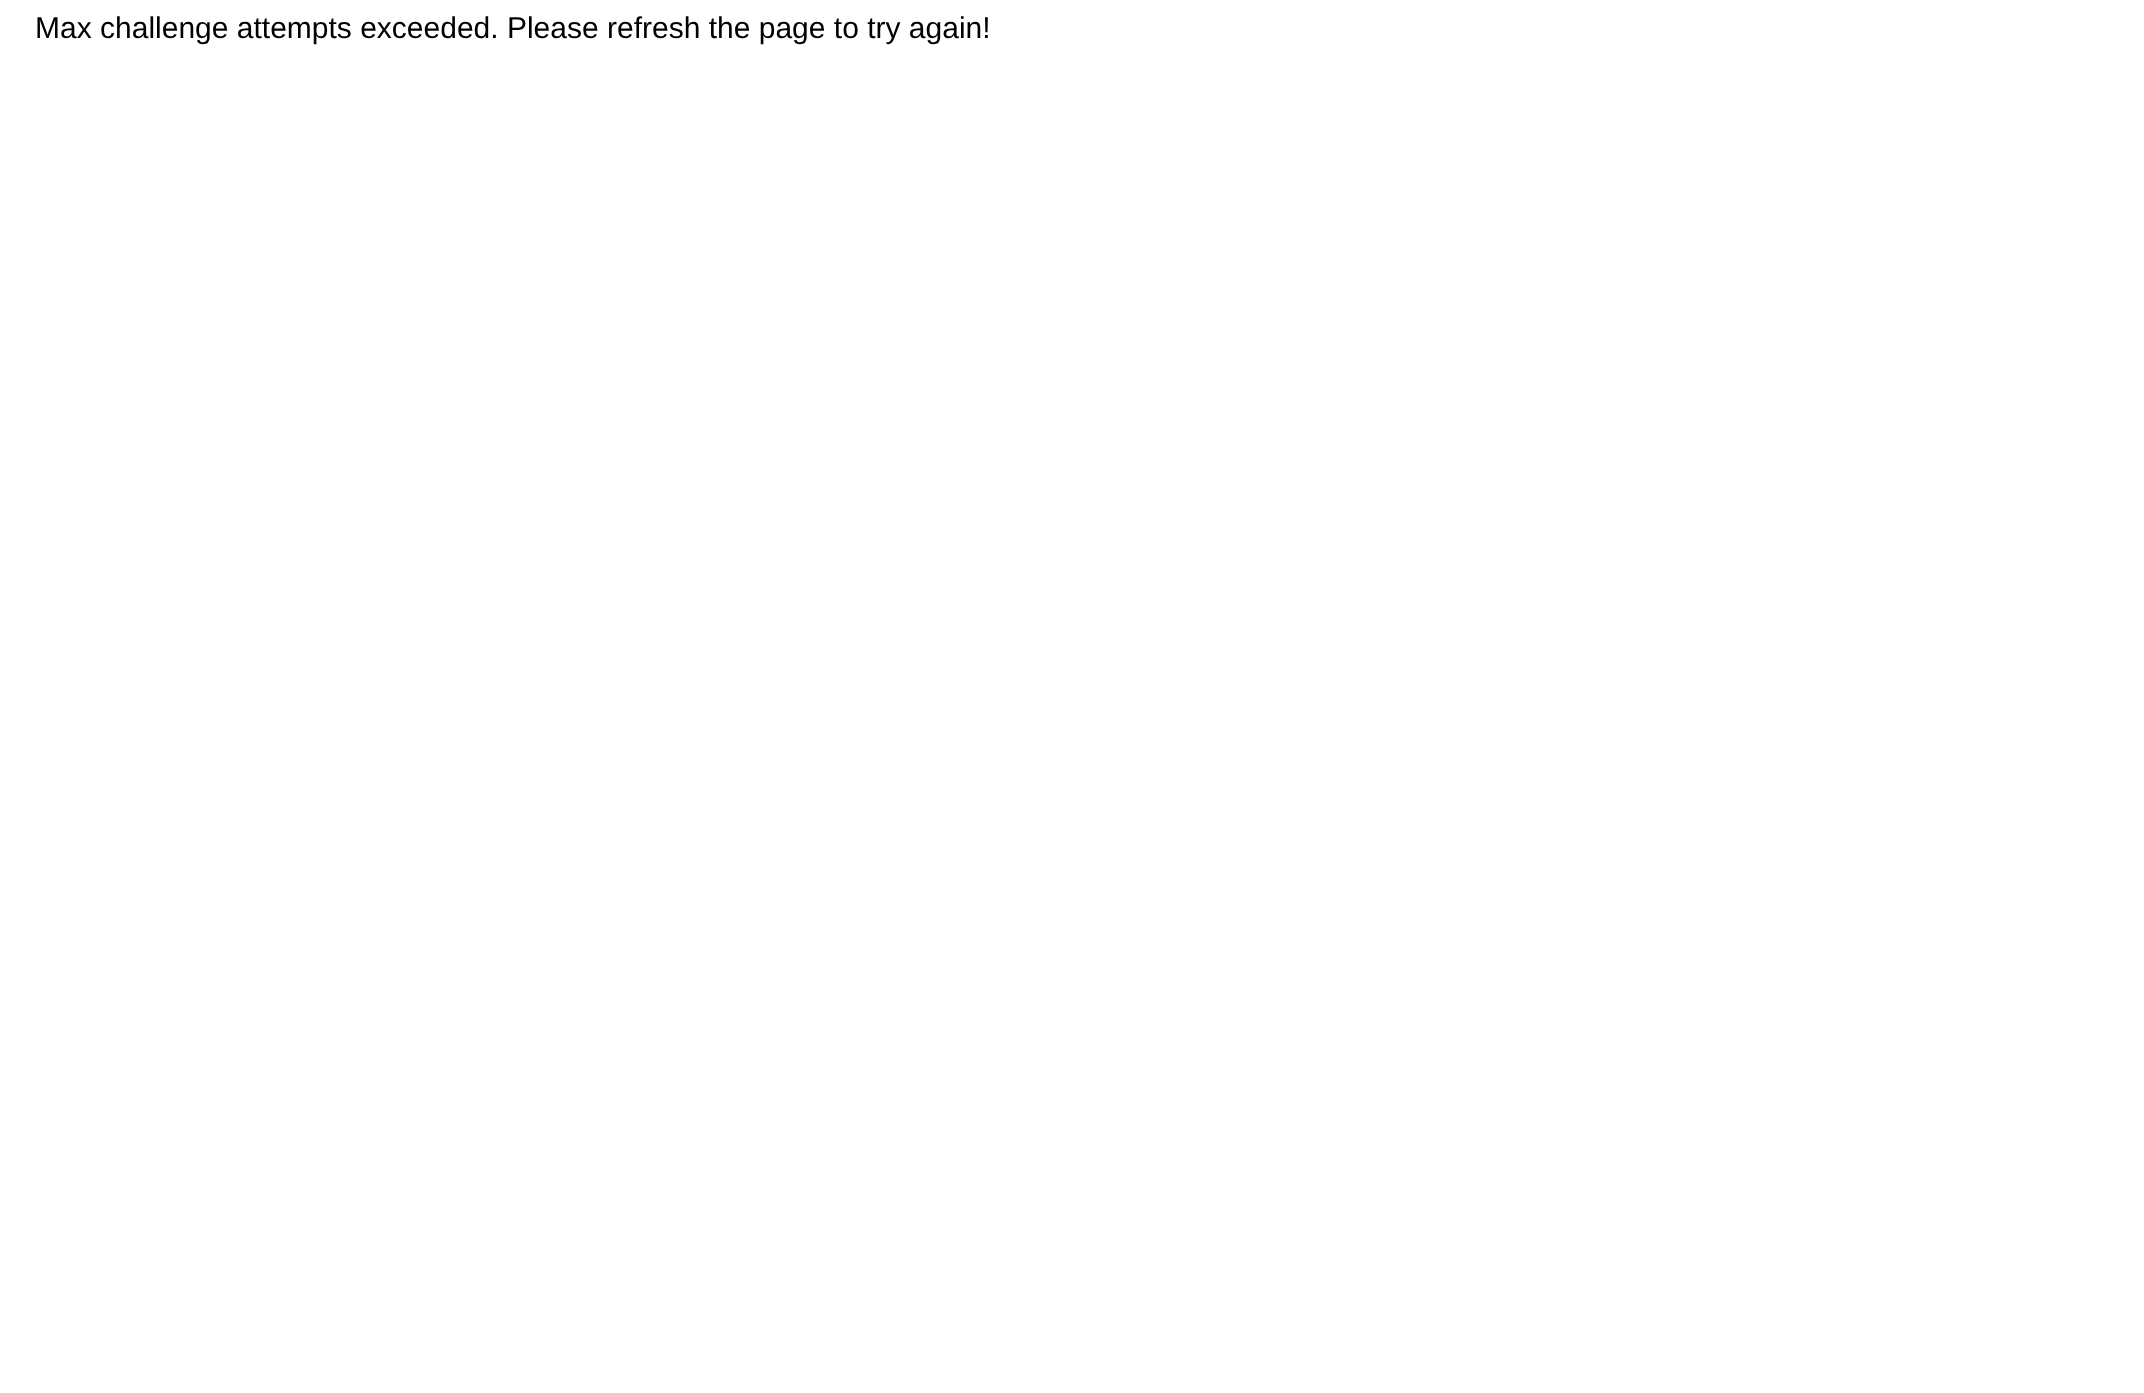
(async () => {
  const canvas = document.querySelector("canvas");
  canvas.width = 2144;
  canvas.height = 1393;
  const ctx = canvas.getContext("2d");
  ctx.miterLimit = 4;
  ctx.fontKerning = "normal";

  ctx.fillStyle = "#ffffff";
  ctx.fillRect(0, 0, 2144, 1393);
  ctx.font = "30px Liberation Sans";
  ctx.fillStyle = "#000000";
  ctx.fillText("Max challenge attempts exceeded. Please refresh the page to try again!", 35, 38);
})();
